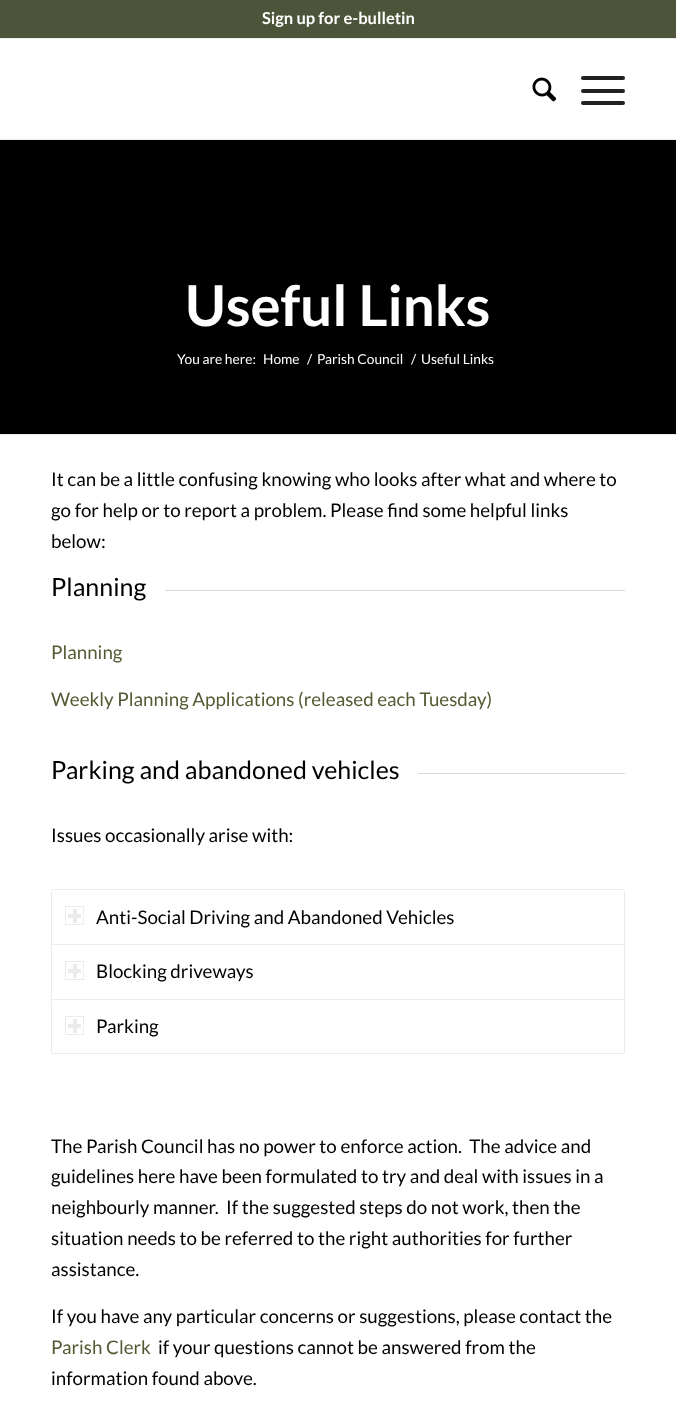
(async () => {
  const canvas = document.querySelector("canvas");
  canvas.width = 676;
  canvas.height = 1409;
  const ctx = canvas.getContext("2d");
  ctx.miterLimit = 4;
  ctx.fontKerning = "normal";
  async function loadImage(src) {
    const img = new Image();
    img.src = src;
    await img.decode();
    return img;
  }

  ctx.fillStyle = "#ffffff";
  ctx.fillRect(0, 0, 676, 1409);
  for (const [x, y, w, h, color] of [
    [0, 0, 676, 38, "#4c5439"],
    [0, 38, 676, 1, "#ebebeb"],
    [0, 139, 676, 1, "#ebebeb"],
  ]) {
    ctx.fillStyle = color;
    ctx.fillRect(x, y, w, h);
  }
  ctx.drawImage(await loadImage("img/1.png"), 532, 77, 25, 25);
  ctx.fillStyle = "#212121";
  ctx.beginPath();
  ctx.roundRect(581, 89, 44, 4, 2);
  ctx.fill();
  ctx.beginPath();
  ctx.roundRect(581, 76, 44, 4, 2);
  ctx.fill();
  ctx.beginPath();
  ctx.roundRect(581, 101, 44, 4, 2);
  ctx.fill();
  for (const [x, y, w, h, color] of [
    [0, 140, 676, 294, "#000000"],
    [0, 434, 676, 1, "#ebebeb"],
    [165, 590, 460, 1, "#d9d9d9"],
    [418, 773, 207, 1, "#d9d9d9"],
  ]) {
    ctx.fillStyle = color;
    ctx.fillRect(x, y, w, h);
  }
  ctx.beginPath();
  ctx.roundRect(51.5, 889.5, 573, 55, [2, 2, 0, 0]);
  ctx.strokeStyle = "#ebebeb";
  ctx.stroke();
  ctx.strokeRect(65.5, 906.5, 18, 18);
  ctx.fillStyle = "#ebebeb";
  ctx.fillRect(73, 909, 4, 14);
  ctx.fillRect(68, 914, 13, 4);
  ctx.fillStyle = "#ffffff";
  ctx.beginPath();
  ctx.roundRect(51.5, 944.5, 573, 55, [2, 2, 0, 0]);
  ctx.fill();
  ctx.stroke();
  ctx.strokeRect(65.5, 961.5, 18, 18);
  ctx.fillStyle = "#ebebeb";
  ctx.fillRect(73, 964, 4, 14);
  ctx.fillRect(68, 969, 13, 4);
  ctx.fillStyle = "#ffffff";
  ctx.beginPath();
  ctx.roundRect(51.5, 999.5, 573, 54, [2, 2, 0, 0]);
  ctx.fill();
  ctx.stroke();
  ctx.strokeRect(65.5, 1016.5, 18, 18);
  ctx.fillStyle = "#ebebeb";
  ctx.fillRect(73, 1019, 4, 14);
  ctx.fillRect(68, 1024, 13, 4);
  ctx.font = "bold 16.5px Lato";
  ctx.fillStyle = "#ffffff";
  ctx.fillText("Sign up for e-bulletin", 262, 24);
  ctx.font = "bold 56.25px Lato";
  ctx.fillText("Useful Links", 185, 326);
  ctx.font = "13.75px Lato";
  for (const [text, x, y] of [
    ["You are here:", 177, 364],
    ["Home", 263, 364],
    ["/", 307, 364],
    ["Parish Council", 317, 364],
    ["/", 411, 364],
    ["Useful Links", 421, 364],
  ]) {
    ctx.fillText(text, x, y);
  }
  ctx.font = "18.75px Lato";
  ctx.fillStyle = "#000000";
  for (const [text, x, y] of [
    ["It can be a little confusing knowing who looks after what and where to", 51, 486],
    ["go for help or to report a problem. Please find some helpful links", 51, 517],
    ["below:", 51, 548],
  ]) {
    ctx.fillText(text, x, y);
  }
  ctx.font = "25px Lato";
  ctx.fillText("Planning", 51, 596);
  ctx.font = "18.75px Lato";
  ctx.fillStyle = "#515b33";
  ctx.fillText("Planning", 51, 659);
  ctx.fillText("Weekly Planning Applications (released each Tuesday)", 51, 706);
  ctx.font = "25px Lato";
  ctx.fillStyle = "#000000";
  ctx.fillText("Parking and abandoned vehicles", 51, 779);
  ctx.font = "18.75px Lato";
  for (const [text, x, y] of [
    ["Issues occasionally arise with:", 51, 842],
    ["Anti-Social Driving and Abandoned Vehicles", 96, 924],
    ["Blocking driveways", 96, 978],
    ["Parking", 96, 1033],
    ["The Parish Council has no power to enforce action.  The advice and", 51, 1153],
    ["guidelines here have been formulated to try and deal with issues in a", 51, 1183],
    ["neighbourly manner.  If the suggested steps do not work, then the", 51, 1214],
    ["situation needs to be referred to the right authorities for further", 51, 1245],
    ["assistance.", 51, 1276],
    ["If you have any particular concerns or suggestions, please contact the", 51, 1323],
  ]) {
    ctx.fillText(text, x, y);
  }
  ctx.fillStyle = "#515b33";
  ctx.fillText("Parish Clerk", 51, 1354);
  ctx.fillStyle = "#000000";
  ctx.fillText("if your questions cannot be answered from the", 158, 1354);
  ctx.fillText("information found above.", 51, 1385);
})();
